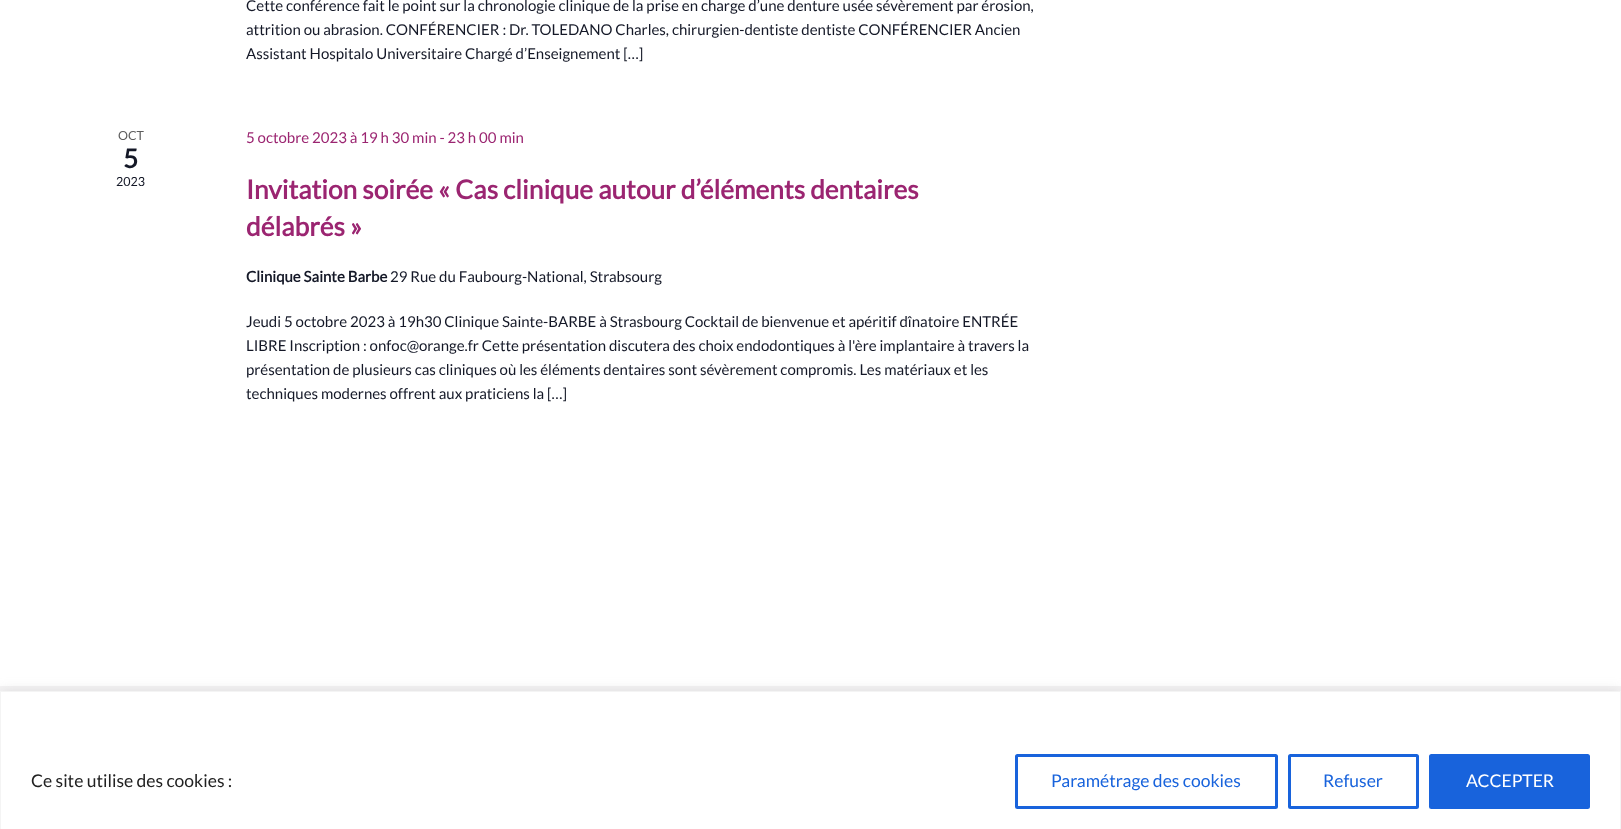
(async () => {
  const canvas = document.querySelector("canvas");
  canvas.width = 1621;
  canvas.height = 829;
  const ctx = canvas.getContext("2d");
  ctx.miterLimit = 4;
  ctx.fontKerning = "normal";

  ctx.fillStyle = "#f5f4f5";
  ctx.fillRect(0, 0, 1621, 829);
  ctx.fillStyle = "#ffffff";
  ctx.fillRect(0, 0, 1621, 686);
  ctx.fillStyle = "rgba(172, 171, 171, 0.3)";
  ctx.filter = "blur(6px)";
  ctx.beginPath();
  ctx.rect(0, 690, 1621, 139);
  ctx.fill();
  ctx.filter = "none";
  ctx.fillStyle = "#ffffff";
  ctx.beginPath();
  ctx.rect(0.5, 691.5, 1620, 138);
  ctx.fill();
  ctx.strokeStyle = "#f4f4f4";
  ctx.stroke();
  ctx.beginPath();
  ctx.roundRect(1016.5, 755.5, 260, 52, 1);
  ctx.strokeStyle = "#1863dc";
  ctx.lineWidth = 3;
  ctx.stroke();
  ctx.beginPath();
  ctx.roundRect(1289.5, 755.5, 128, 52, 1);
  ctx.stroke();
  ctx.fillStyle = "#1863dc";
  ctx.beginPath();
  ctx.roundRect(1430.5, 755.5, 158, 52, 1);
  ctx.fill();
  ctx.stroke();
  ctx.font = "15px Lato";
  ctx.fillStyle = "#141827";
  for (const [text, x, y] of [
    ["Cette conférence fait le point sur la chronologie clinique de la prise en charge d’une denture usée sévèrement par érosion,", 246, 11],
    ["attrition ou abrasion. CONFÉRENCIER : Dr. TOLEDANO Charles, chirurgien-dentiste dentiste CONFÉRENCIER Ancien", 246, 35],
    ["Assistant Hospitalo Universitaire Chargé d’Enseignement […]", 246, 59],
  ]) {
    ctx.fillText(text, x, y);
  }
  ctx.font = "12.5px Lato";
  ctx.fillStyle = "#5d5d5d";
  ctx.fillText("OCT", 118, 140);
  ctx.font = "bold 26.25px Lato";
  ctx.fillStyle = "#141827";
  ctx.fillText("5", 123, 168);
  ctx.font = "12.5px Lato";
  ctx.fillText("2023", 116, 186);
  ctx.font = "15px Lato";
  ctx.fillStyle = "#9b2571";
  ctx.fillText("5 octobre 2023 à 19 h 30 min - 23 h 00 min", 246, 143);
  ctx.font = "bold 26.25px Lato";
  ctx.fillText("Invitation soirée « Cas clinique autour d’éléments dentaires", 246, 199);
  ctx.fillText("délabrés »", 246, 236);
  ctx.font = "bold 15px Lato";
  ctx.fillStyle = "#141827";
  ctx.fillText("Clinique Sainte Barbe", 246, 282);
  ctx.font = "15px Lato";
  for (const [text, x, y] of [
    ["29 Rue du Faubourg-National, Strabsourg", 390, 282],
    ["Jeudi 5 octobre 2023 à 19h30 Clinique Sainte-BARBE à Strasbourg Cocktail de bienvenue et apéritif dînatoire ENTRÉE", 246, 327],
    ["LIBRE Inscription : onfoc@orange.fr Cette présentation discutera des choix endodontiques à l'ère implantaire à travers la", 246, 351],
    ["présentation de plusieurs cas cliniques où les éléments dentaires sont sévèrement compromis. Les matériaux et les", 246, 375],
    ["techniques modernes offrent aux praticiens la […]", 246, 399],
  ]) {
    ctx.fillText(text, x, y);
  }
  ctx.font = "17.5px Lato";
  ctx.fillStyle = "#212121";
  ctx.fillText("Ce site utilise des cookies :", 31, 787);
  ctx.fillStyle = "#1863dc";
  ctx.fillText("Paramétrage des cookies", 1051, 787);
  ctx.fillText("Refuser", 1323, 787);
  ctx.fillStyle = "#ffffff";
  ctx.fillText("ACCEPTER", 1466, 787);
})();
